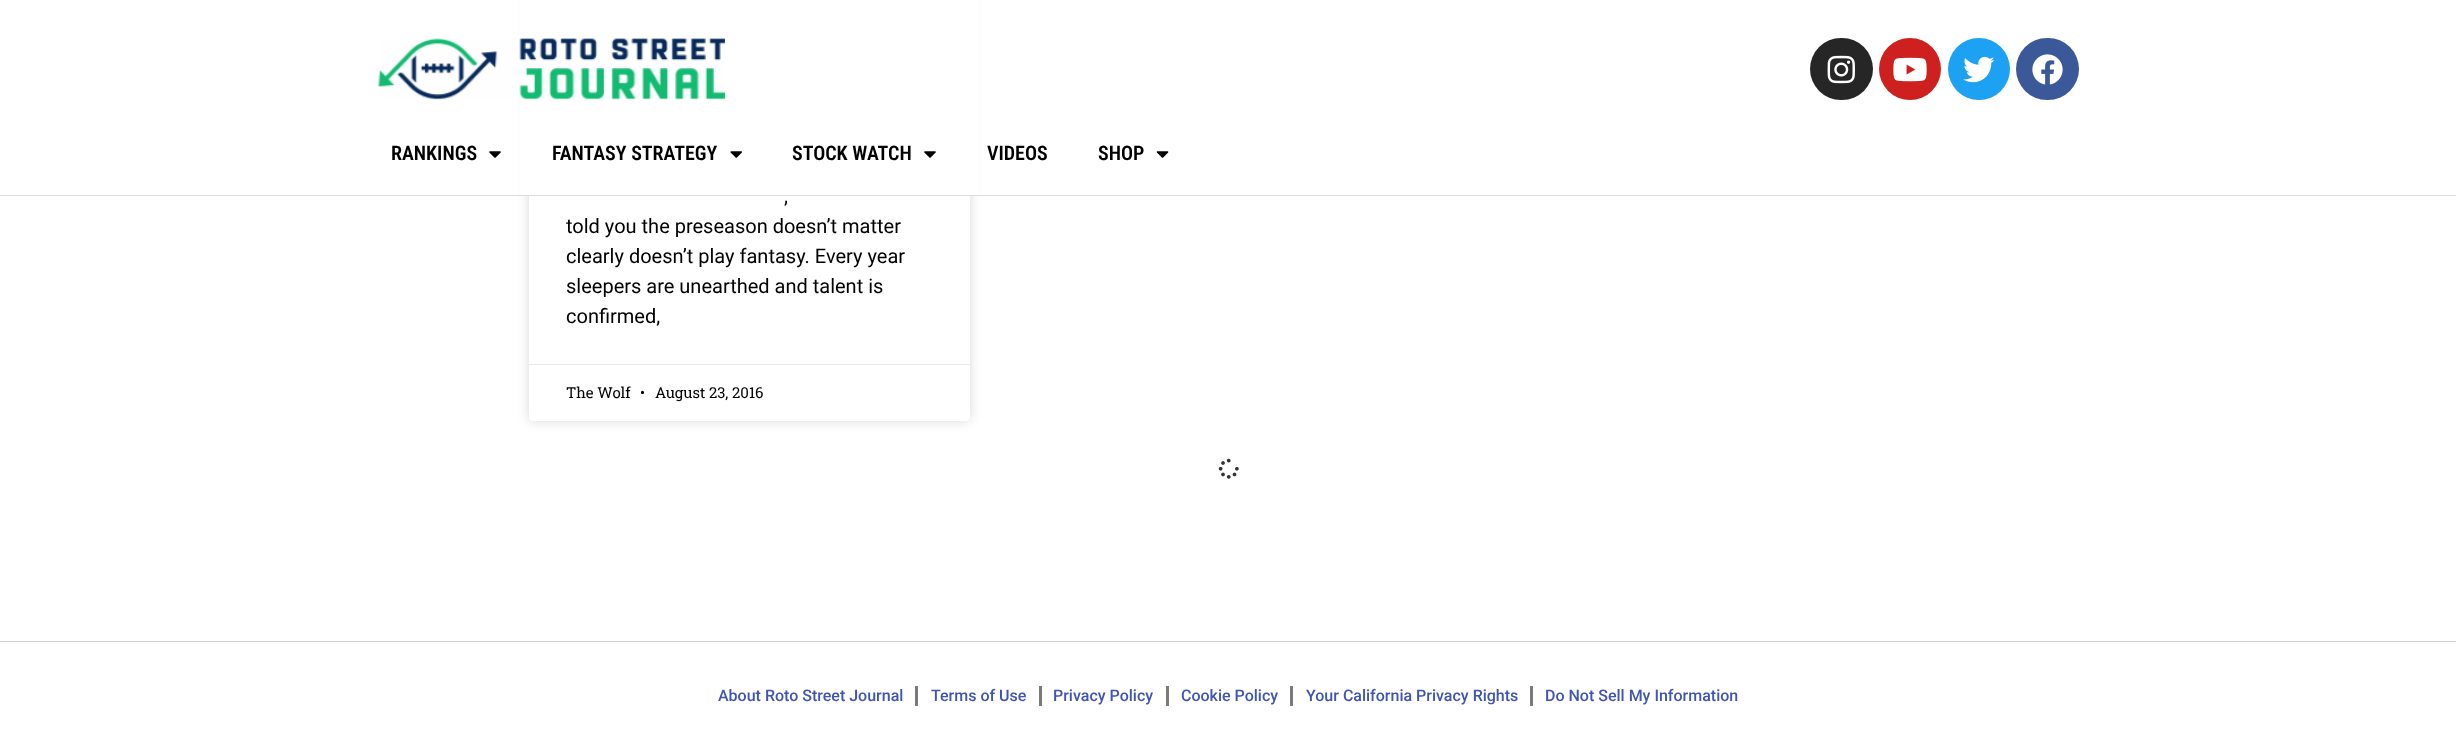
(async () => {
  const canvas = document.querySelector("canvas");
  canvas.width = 2456;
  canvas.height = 736;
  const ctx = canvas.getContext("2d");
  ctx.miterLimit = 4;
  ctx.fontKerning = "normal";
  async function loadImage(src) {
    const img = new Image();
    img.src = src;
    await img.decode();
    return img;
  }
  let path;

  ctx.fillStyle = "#ffffff";
  ctx.fillRect(0, 0, 2456, 736);
  ctx.save();
  path = new Path2D("M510 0H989V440H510ZM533-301H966C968-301 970-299 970-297V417C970 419 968 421 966 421H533C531 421 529 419 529 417V-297C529-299 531-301 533-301Z");
  ctx.clip(path, "evenodd");
  ctx.fillStyle = "rgba(0, 0, 0, 0.15)";
  ctx.filter = "blur(6px)";
  ctx.beginPath();
  ctx.roundRect(529, -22, 441, 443, 4);
  ctx.fill();
  ctx.filter = "none";
  ctx.restore();
  ctx.fillRect(520, 0, 459, 195);
  ctx.fillStyle = "#dbdbdb";
  ctx.fillRect(0, 195, 2456, 1);
  ctx.drawImage(await loadImage("img/1.png"), 378, 38, 347, 62);
  ctx.fillStyle = "#262626";
  ctx.beginPath();
  ctx.roundRect(1810, 38, 63, 62, 31);
  ctx.fill();
  ctx.drawImage(await loadImage("img/2.png"), 1827, 55, 28, 29);
  ctx.fillStyle = "#cd201f";
  ctx.beginPath();
  ctx.arc(1910, 69, 31, 0, Math.PI * 2);
  ctx.fill();
  ctx.drawImage(await loadImage("img/3.png"), 1893, 57, 34, 25);
  ctx.fillStyle = "#1da1f2";
  ctx.beginPath();
  ctx.arc(1979, 69, 31, 0, Math.PI * 2);
  ctx.fill();
  ctx.drawImage(await loadImage("img/4.png"), 1963, 56, 32, 27);
  ctx.fillStyle = "#3b5998";
  ctx.beginPath();
  ctx.roundRect(2016, 38, 63, 62, 31);
  ctx.fill();
  ctx.drawImage(await loadImage("img/5.png"), 2032, 54, 31, 31);
  ctx.drawImage(await loadImage("img/6.png"), 489, 151, 12, 7);
  ctx.drawImage(await loadImage("img/7.png"), 730, 151, 12, 7);
  ctx.drawImage(await loadImage("img/6.png"), 924, 151, 12, 7);
  ctx.drawImage(await loadImage("img/8.png"), 1156, 151, 13, 7);
  ctx.fillStyle = "#eaeaea";
  ctx.fillRect(529, 364, 441, 1);
  ctx.drawImage(await loadImage("img/9.png"), 1218, 458, 21, 21);
  for (const [x, y, w, h, color] of [
    [0, 641, 2456, 1, "#d1d1d1"],
    [915, 686, 3, 20, "#7a7a7a"],
    [1039, 686, 3, 20, "#7a7a7a"],
    [1166, 686, 3, 20, "#7a7a7a"],
    [1290, 686, 3, 20, "#7a7a7a"],
    [1530, 686, 3, 20, "#7a7a7a"],
  ]) {
    ctx.fillStyle = color;
    ctx.fillRect(x, y, w, h);
  }
  ctx.font = "600 20px Roboto Condensed";
  ctx.fillStyle = "#000000";
  for (const [text, x, y] of [
    ["RANKINGS", 391, 160],
    ["FANTASY STRATEGY", 552, 160],
    ["STOCK WATCH", 792, 160],
    ["VIDEOS", 987, 160],
    ["SHOP", 1098, 160],
  ]) {
    ctx.fillText(text, x, y);
  }
  ctx.font = "20px Roboto";
  for (const [text, x, y] of [
    [",", 784, 203],
    ["told you the preseason doesn’t matter", 566, 233],
    ["clearly doesn’t play fantasy. Every year", 566, 263],
    ["sleepers are unearthed and talent is", 566, 293],
    ["confirmed,", 566, 323],
  ]) {
    ctx.fillText(text, x, y);
  }
  ctx.font = "15px Roboto Slab";
  for (const [text, x, y] of [
    ["The Wolf", 566, 398],
    ["•", 640, 398],
    ["August 23, 2016", 655, 398],
  ]) {
    ctx.fillText(text, x, y);
  }
  ctx.font = "500 16px Roboto";
  ctx.fillStyle = "#4054b2";
  for (const [text, x, y] of [
    ["About Roto Street Journal", 718, 701],
    ["Terms of Use", 931, 701],
    ["Privacy Policy", 1053, 701],
    ["Cookie Policy", 1181, 701],
    ["Your California Privacy Rights", 1306, 701],
    ["Do Not Sell My Information", 1545, 701],
  ]) {
    ctx.fillText(text, x, y);
  }
})();
